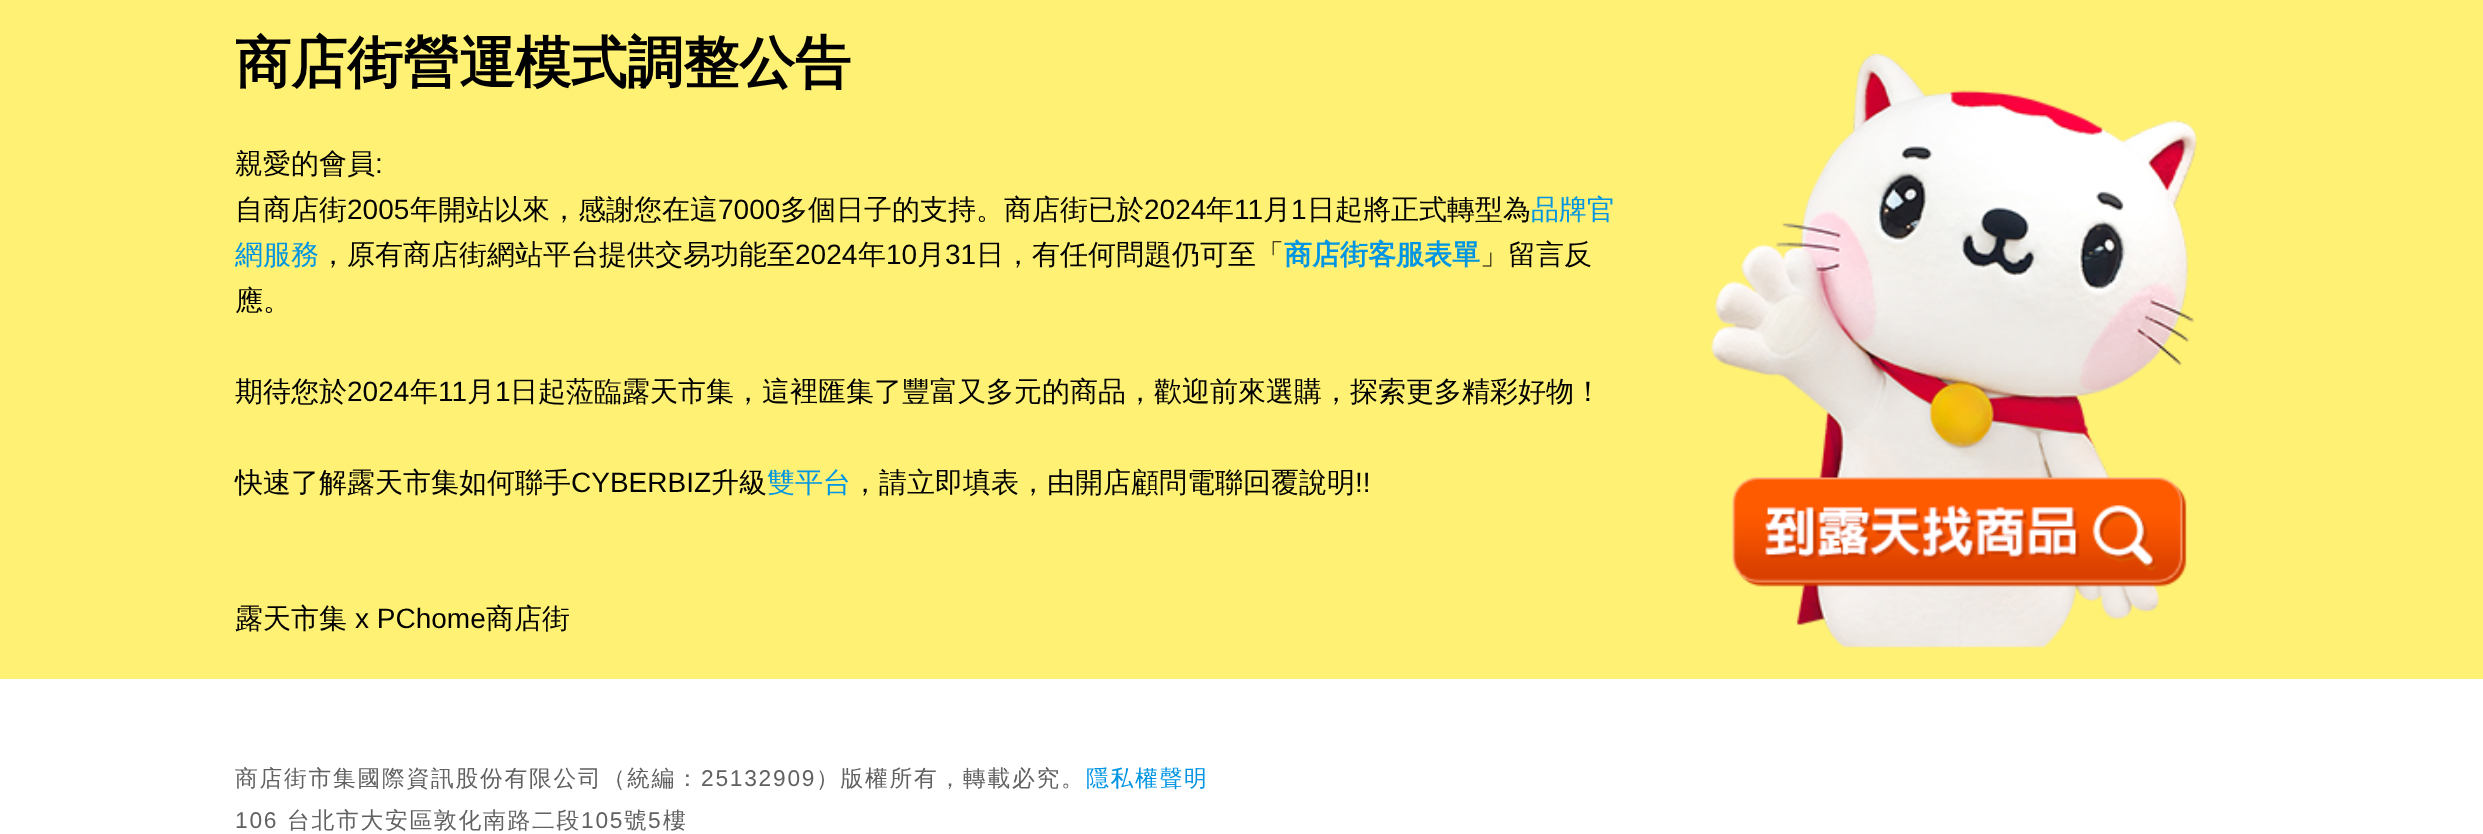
(async () => {
  const canvas = document.querySelector("canvas");
  canvas.width = 2483;
  canvas.height = 834;
  const ctx = canvas.getContext("2d");
  ctx.miterLimit = 4;
  ctx.fontKerning = "normal";
  async function loadImage(src) {
    const img = new Image();
    img.src = src;
    await img.decode();
    return img;
  }

  ctx.fillStyle = "#ffffff";
  ctx.fillRect(0, 0, 2483, 834);
  ctx.fillStyle = "#fff174";
  ctx.fillRect(0, 0, 2483, 679);
  ctx.drawImage(await loadImage("img/1.png"), 1711, 54, 486, 594);
  ctx.font = "bold 56px WenQuanYi Zen Hei";
  ctx.fillStyle = "#000000";
  ctx.fillText("商店街營運模式調整公告", 235, 82);
  ctx.font = "500 28px WenQuanYi Zen Hei";
  ctx.fillText("親愛的會員", 235, 173);
  ctx.font = "28px Liberation Sans";
  ctx.fillText(":", 375, 173);
  ctx.font = "500 28px WenQuanYi Zen Hei";
  ctx.fillText("自商店街", 235, 219);
  ctx.font = "28px Liberation Sans";
  ctx.fillText("2005", 347, 219);
  ctx.font = "500 28px WenQuanYi Zen Hei";
  ctx.fillText("年開站以來，感謝您在這", 410, 219);
  ctx.font = "28px Liberation Sans";
  ctx.fillText("7000", 718, 219);
  ctx.font = "500 28px WenQuanYi Zen Hei";
  ctx.fillText("多個日子的支持。商店街已於", 780, 219);
  ctx.font = "28px Liberation Sans";
  ctx.fillText("2024", 1144, 219);
  ctx.font = "500 28px WenQuanYi Zen Hei";
  ctx.fillText("年", 1206, 219);
  ctx.font = "28px Liberation Sans";
  ctx.fillText("11", 1234, 219);
  ctx.font = "500 28px WenQuanYi Zen Hei";
  ctx.fillText("月", 1263, 219);
  ctx.font = "28px Liberation Sans";
  ctx.fillText("1", 1291, 219);
  ctx.font = "500 28px WenQuanYi Zen Hei";
  ctx.fillText("日起將正式轉型為", 1307, 219);
  ctx.fillStyle = "#0095e2";
  ctx.fillText("品牌官", 1531, 219);
  ctx.fillText("網服務", 235, 264);
  ctx.fillStyle = "#000000";
  ctx.fillText("，原有商店街網站平台提供交易功能至", 319, 264);
  ctx.font = "28px Liberation Sans";
  ctx.fillText("2024", 795, 264);
  ctx.font = "500 28px WenQuanYi Zen Hei";
  ctx.fillText("年", 858, 264);
  ctx.font = "28px Liberation Sans";
  ctx.fillText("10", 886, 264);
  ctx.font = "500 28px WenQuanYi Zen Hei";
  ctx.fillText("月", 917, 264);
  ctx.font = "28px Liberation Sans";
  ctx.fillText("31", 945, 264);
  ctx.font = "500 28px WenQuanYi Zen Hei";
  ctx.fillText("日，有任何問題仍可至「", 976, 264);
  ctx.font = "bold 28px WenQuanYi Zen Hei";
  ctx.fillStyle = "#0095e2";
  ctx.fillText("商店街客服表單", 1284, 264);
  ctx.font = "500 28px WenQuanYi Zen Hei";
  ctx.fillStyle = "#000000";
  for (const [text, x, y] of [
    ["」留言反", 1480, 264],
    ["應。", 235, 310],
    ["期待您於", 235, 401],
  ]) {
    ctx.fillText(text, x, y);
  }
  ctx.font = "28px Liberation Sans";
  ctx.fillText("2024", 347, 401);
  ctx.font = "500 28px WenQuanYi Zen Hei";
  ctx.fillText("年", 410, 401);
  ctx.font = "28px Liberation Sans";
  ctx.fillText("11", 438, 401);
  ctx.font = "500 28px WenQuanYi Zen Hei";
  ctx.fillText("月", 467, 401);
  ctx.font = "28px Liberation Sans";
  ctx.fillText("1", 495, 401);
  ctx.font = "500 28px WenQuanYi Zen Hei";
  ctx.fillText("日起蒞臨露天市集，這裡匯集了豐富又多元的商品，歡迎前來選購，探索更多精彩好物！", 510, 401);
  ctx.fillText("快速了解露天市集如何聯手", 235, 492);
  ctx.font = "28px Liberation Sans";
  ctx.fillText("CYBERBIZ", 571, 492);
  ctx.font = "500 28px WenQuanYi Zen Hei";
  ctx.fillText("升級", 711, 492);
  ctx.fillStyle = "#0095e2";
  ctx.fillText("雙平台", 767, 492);
  ctx.fillStyle = "#000000";
  ctx.fillText("，請立即填表，由開店顧問電聯回覆說明", 851, 492);
  ctx.font = "28px Liberation Sans";
  ctx.fillText("!!", 1355, 492);
  ctx.font = "500 28px WenQuanYi Zen Hei";
  ctx.fillText("露天市集", 235, 628);
  ctx.font = "28px Liberation Sans";
  ctx.fillText("x PChome", 355, 628);
  ctx.font = "500 28px WenQuanYi Zen Hei";
  ctx.fillText("商店街", 486, 628);
  ctx.letterSpacing = "1.75px";
  ctx.font = "500 22.75px WenQuanYi Zen Hei";
  ctx.fillStyle = "#616161";
  ctx.fillText("商店街市集國際資訊股份有限公司（統編：", 235, 786);
  ctx.font = "22.75px Liberation Sans";
  ctx.fillText("25132909", 701, 786);
  ctx.font = "500 22.75px WenQuanYi Zen Hei";
  ctx.fillText("）版權所有，轉載必究。", 816, 786);
  ctx.fillStyle = "#0095e2";
  ctx.fillText("隱私權聲明", 1086, 786);
  ctx.font = "22.75px Liberation Sans";
  ctx.fillStyle = "#616161";
  ctx.fillText("106", 235, 828);
  ctx.font = "500 22.75px WenQuanYi Zen Hei";
  ctx.fillText("台北市大安區敦化南路二段", 287, 828);
  ctx.font = "22.75px Liberation Sans";
  ctx.fillText("105", 581, 828);
  ctx.font = "500 22.75px WenQuanYi Zen Hei";
  ctx.fillText("號", 624, 828);
  ctx.font = "22.75px Liberation Sans";
  ctx.fillText("5", 648, 828);
  ctx.font = "500 22.75px WenQuanYi Zen Hei";
  ctx.fillText("樓", 663, 828);
})();
